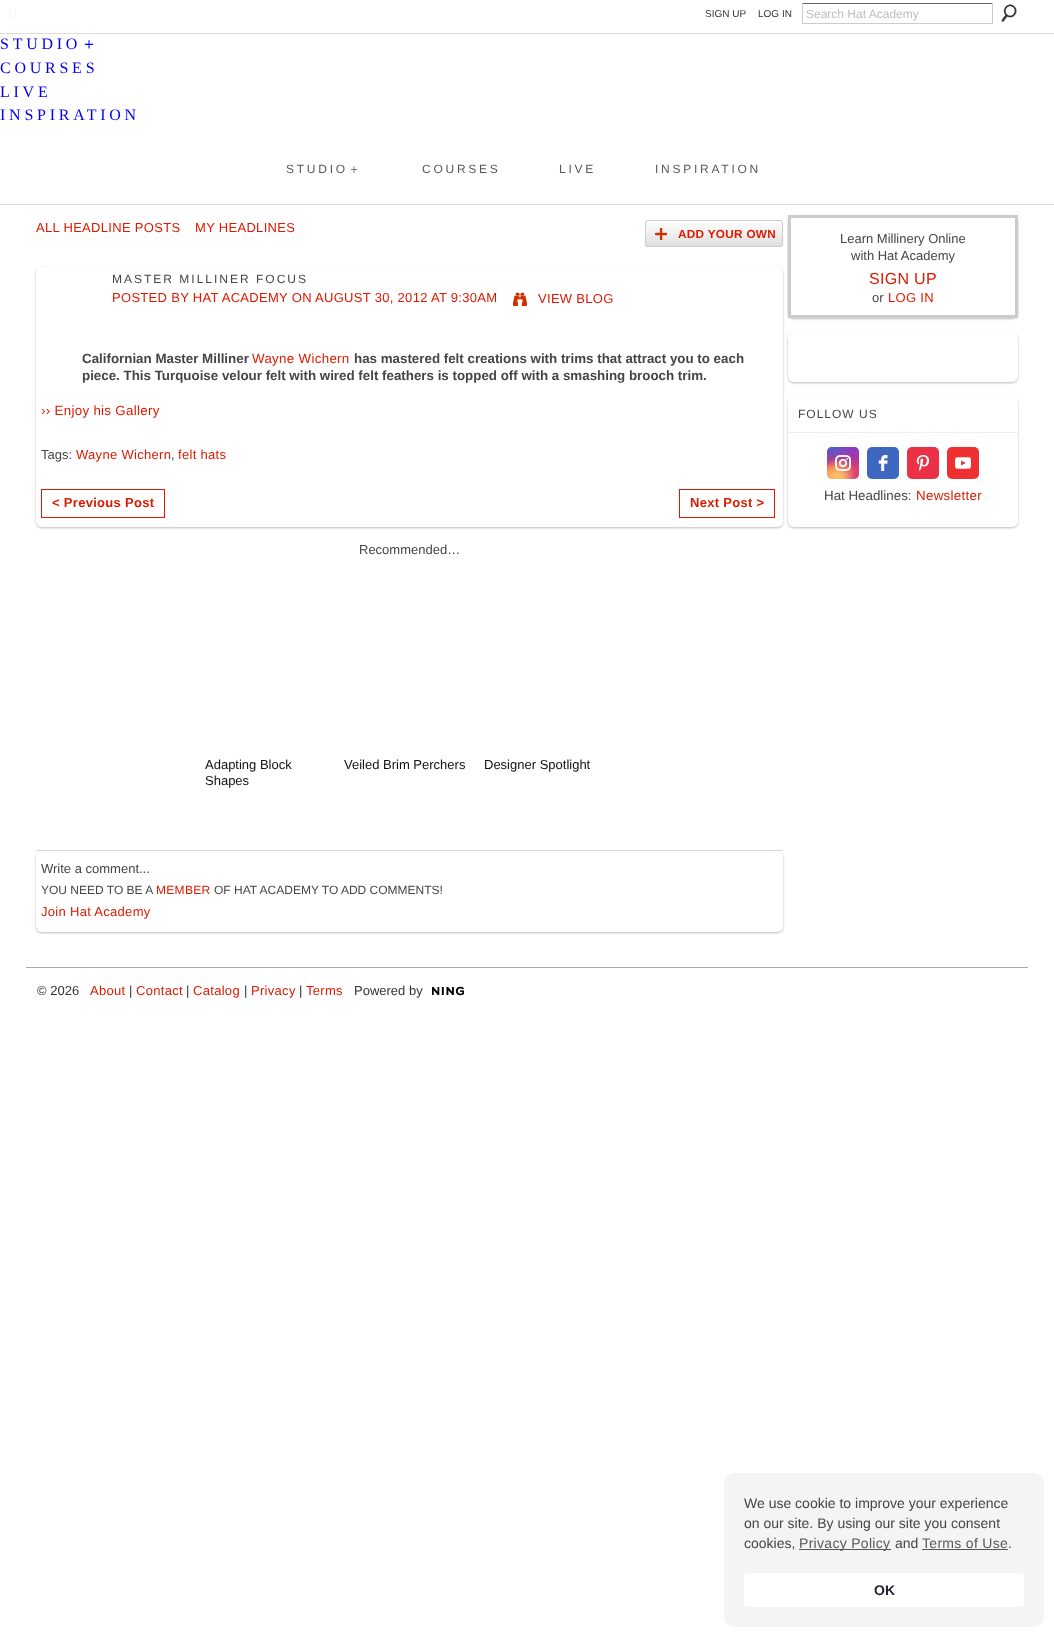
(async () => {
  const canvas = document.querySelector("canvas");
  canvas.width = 1054;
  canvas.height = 1637;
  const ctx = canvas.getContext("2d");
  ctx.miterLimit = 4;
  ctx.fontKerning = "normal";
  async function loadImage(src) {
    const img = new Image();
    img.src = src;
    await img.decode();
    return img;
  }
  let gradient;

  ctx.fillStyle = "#ffffff";
  ctx.fillRect(0, 0, 1054, 1637);
  ctx.drawImage(await loadImage("img/1.png"), 9, 9, 7, 9);
  for (const [x, y, w, h, color] of [
    [802, 3, 191, 1, "#666666"],
    [992, 3, 1, 21, "#cccccc"],
    [802, 23, 191, 1, "#cccccc"],
    [802, 3, 1, 21, "#cccccc"],
  ]) {
    ctx.fillStyle = color;
    ctx.fillRect(x, y, w, h);
  }
  ctx.drawImage(await loadImage("img/2.png"), 1001, 4, 16, 18);
  ctx.fillStyle = "#dbdbdb";
  ctx.fillRect(0, 33, 1054, 1);
  ctx.fillRect(0, 204, 1054, 1);
  ctx.drawImage(await loadImage("img/3.png"), 645, 223, 138, 24);
  ctx.beginPath();
  ctx.roundRect(645.5, 220.5, 137, 26, 2.5);
  ctx.strokeStyle = "#cbcbcb";
  ctx.stroke();
  ctx.drawImage(await loadImage("img/4.png"), 655, 228, 12, 12);
  ctx.fillStyle = "#bbbbbb";
  ctx.filter = "blur(1px)";
  ctx.beginPath();
  ctx.roundRect(36, 268, 747, 260, 6);
  ctx.fill();
  ctx.filter = "none";
  ctx.fillStyle = "#ffffff";
  ctx.beginPath();
  ctx.roundRect(36, 267, 747, 260, 6);
  ctx.fill();
  ctx.drawImage(await loadImage("img/5.png"), 513, 292, 14, 14);
  ctx.strokeStyle = "#dd1a00";
  ctx.strokeRect(41.5, 489.5, 123, 28);
  ctx.strokeRect(679.5, 489.5, 95, 28);
  ctx.fillStyle = "#dbdbdb";
  ctx.fillRect(36, 850, 747, 1);
  ctx.fillStyle = "#bbbbbb";
  ctx.filter = "blur(1px)";
  ctx.beginPath();
  ctx.roundRect(36, 852, 747, 81, 6);
  ctx.fill();
  ctx.filter = "none";
  ctx.fillStyle = "#ffffff";
  ctx.beginPath();
  ctx.roundRect(36, 851, 747, 81, 6);
  ctx.fill();
  ctx.fillStyle = "#bbbbbb";
  ctx.filter = "blur(1px)";
  ctx.beginPath();
  ctx.roundRect(788, 216, 230, 103, 6);
  ctx.fill();
  ctx.filter = "none";
  ctx.fillStyle = "#ffffff";
  ctx.beginPath();
  ctx.rect(789.5, 216.5, 227, 100);
  ctx.fill();
  ctx.strokeStyle = "#cbcbcb";
  ctx.lineWidth = 3;
  ctx.stroke();
  ctx.fillStyle = "#bbbbbb";
  ctx.filter = "blur(1px)";
  ctx.beginPath();
  ctx.roundRect(788, 334, 230, 49, 6);
  ctx.fill();
  ctx.filter = "none";
  ctx.fillStyle = "#ffffff";
  ctx.beginPath();
  ctx.roundRect(788, 333, 230, 49, 6);
  ctx.fill();
  ctx.fillStyle = "#bbbbbb";
  ctx.filter = "blur(1px)";
  ctx.beginPath();
  ctx.roundRect(788, 398, 230, 130, 6);
  ctx.fill();
  ctx.filter = "none";
  ctx.fillStyle = "#ffffff";
  ctx.beginPath();
  ctx.roundRect(788, 397, 230, 130, 6);
  ctx.fill();
  ctx.beginPath();
  ctx.roundRect(788, 397, 230, 35, [6, 6, 0, 0]);
  ctx.fill();
  ctx.fillStyle = "#eeeeee";
  ctx.fillRect(788, 432, 230, 1);
  gradient = ctx.createLinearGradient(843, 447, 843, 479);
  gradient.addColorStop(0, "#6559ca");
  gradient.addColorStop(0.3, "#bc318f");
  gradient.addColorStop(0.5, "#e33f5f");
  gradient.addColorStop(0.7, "#f77638");
  gradient.addColorStop(1, "#fec66d");
  ctx.fillStyle = gradient;
  ctx.beginPath();
  ctx.roundRect(827, 447, 32, 32, 5);
  ctx.fill();
  gradient = ctx.createRadialGradient(859, 479, 0, 859, 479, 45);
  gradient.addColorStop(0, "#d9317a");
  gradient.addColorStop(1, "rgba(217, 49, 122, 0)");
  ctx.fillStyle = gradient;
  ctx.beginPath();
  ctx.roundRect(827, 447, 32, 32, 5);
  ctx.fill();
  gradient = ctx.createRadialGradient(846, 220.5, 0, 846, 220.5, 27);
  gradient.addColorStop(0, "#893dc2");
  gradient.addColorStop(0.5, "rgba(137, 61, 194, 0)");
  ctx.fillStyle = gradient;
  ctx.beginPath();
  ctx.roundRect(827, 447, 32, 32, 5);
  ctx.save();
  ctx.clip();
  ctx.scale(1, 54 / 27);
  ctx.fillRect(0, 0, 1054, 819);
  ctx.restore();
  gradient = ctx.createRadialGradient(859, 447, 0, 859, 447, 45);
  gradient.addColorStop(0, "#893dc2");
  gradient.addColorStop(0.5, "rgba(137, 61, 194, 0)");
  ctx.fillStyle = gradient;
  ctx.beginPath();
  ctx.roundRect(827, 447, 32, 32, 5);
  ctx.fill();
  gradient = ctx.createRadialGradient(833, 228.18, 0, 833, 228.18, 36);
  gradient.addColorStop(0, "#5258cf");
  gradient.addColorStop(0.5, "rgba(82, 88, 207, 0)");
  ctx.fillStyle = gradient;
  ctx.beginPath();
  ctx.roundRect(827, 447, 32, 32, 5);
  ctx.save();
  ctx.clip();
  ctx.scale(1, 68 / 36);
  ctx.fillRect(0, 0, 1054, 867);
  ctx.restore();
  gradient = ctx.createRadialGradient(827, 346.58, 0, 827, 346.58, 45);
  gradient.addColorStop(0, "#5258cf");
  gradient.addColorStop(0.5, "rgba(82, 88, 207, 0)");
  ctx.fillStyle = gradient;
  ctx.beginPath();
  ctx.roundRect(827, 447, 32, 32, 5);
  ctx.save();
  ctx.clip();
  ctx.scale(1, 57 / 45);
  ctx.fillRect(0, 0, 1054, 1293);
  ctx.restore();
  gradient = ctx.createRadialGradient(827, 492, 0, 827, 492, 55);
  gradient.addColorStop(0, "#fec564");
  gradient.addColorStop(0.5, "rgba(254, 197, 100, 0)");
  ctx.fillStyle = gradient;
  ctx.beginPath();
  ctx.roundRect(827, 447, 32, 32, 5);
  ctx.fill();
  gradient = ctx.createRadialGradient(838, 476, 0, 838, 476, 36);
  gradient.addColorStop(0, "#fec564");
  gradient.addColorStop(0.5, "rgba(254, 197, 100, 0)");
  ctx.fillStyle = gradient;
  ctx.beginPath();
  ctx.roundRect(827, 447, 32, 32, 5);
  ctx.fill();
  ctx.drawImage(await loadImage("img/6.png"), 835, 455, 16, 16);
  ctx.fillStyle = "#3e68c0";
  ctx.beginPath();
  ctx.roundRect(867, 447, 32, 32, 5);
  ctx.fill();
  ctx.drawImage(await loadImage("img/7.png"), 878, 455, 10, 16);
  ctx.fillStyle = "#ea3145";
  ctx.beginPath();
  ctx.roundRect(907, 447, 32, 32, 5);
  ctx.fill();
  ctx.drawImage(await loadImage("img/8.png"), 916, 455, 14, 16);
  ctx.fillStyle = "#ee3130";
  ctx.beginPath();
  ctx.roundRect(947, 447, 32, 32, 5);
  ctx.fill();
  ctx.drawImage(await loadImage("img/9.png"), 955, 457, 16, 12);
  ctx.fillStyle = "#aaaaaa";
  ctx.fillRect(26, 967, 1002, 1);
  ctx.drawImage(await loadImage("img/10.png"), 432, 986, 32, 10);
  ctx.fillStyle = "#f4f4f4";
  ctx.beginPath();
  ctx.roundRect(724, 1473, 320, 154, 10);
  ctx.fill();
  ctx.fillStyle = "#575757";
  ctx.fillRect(799, 1549, 92, 1);
  ctx.fillRect(922, 1549, 86, 1);
  ctx.fillStyle = "#ffffff";
  ctx.beginPath();
  ctx.roundRect(744, 1573, 280, 34, 4);
  ctx.fill();
  ctx.font = "10px Liberation Sans";
  ctx.fillStyle = "#333333";
  ctx.fillText("SIGN UP", 705, 17);
  ctx.fillText("LOG IN", 758, 17);
  ctx.font = "12px Liberation Sans";
  ctx.fillStyle = "#bdbdbd";
  ctx.fillText("Search Hat Academy", 806, 18);
  ctx.letterSpacing = "3.75px";
  ctx.font = "16px Liberation Serif";
  ctx.fillStyle = "#0000ee";
  ctx.fillText("STUDIO", 0, 49);
  ctx.font = "500 16px WenQuanYi Zen Hei";
  ctx.fillText("＋", 81, 49);
  ctx.font = "16px Liberation Serif";
  for (const [text, x, y] of [
    ["COURSES", 0, 73],
    ["LIVE", 0, 97],
    ["INSPIRATION", 0, 120],
  ]) {
    ctx.fillText(text, x, y);
  }
  ctx.letterSpacing = "2.75px";
  ctx.font = "12px Liberation Sans";
  ctx.fillStyle = "#595959";
  ctx.fillText("STUDIO", 286, 173);
  ctx.font = "500 12px WenQuanYi Zen Hei";
  ctx.fillText("＋", 348, 173);
  ctx.font = "12px Liberation Sans";
  for (const [text, x, y] of [
    ["COURSES", 422, 173],
    ["LIVE", 559, 173],
    ["INSPIRATION", 655, 173],
  ]) {
    ctx.fillText(text, x, y);
  }
  ctx.letterSpacing = "0.3px";
  ctx.font = "13px Liberation Sans";
  ctx.fillStyle = "#dd1a00";
  ctx.fillText("ALL HEADLINE POSTS", 36, 232);
  ctx.fillText("MY HEADLINES", 195, 232);
  ctx.font = "bold 11.75px Liberation Sans";
  ctx.fillText("ADD YOUR OWN", 678, 238);
  ctx.letterSpacing = "2px";
  ctx.font = "12px Liberation Sans";
  ctx.fillStyle = "#454545";
  ctx.fillText("MASTER MILLINER FOCUS", 112, 283);
  ctx.letterSpacing = "0.3px";
  ctx.font = "13px Liberation Sans";
  ctx.fillStyle = "#dd1a00";
  ctx.fillText("POSTED BY HAT ACADEMY ON AUGUST 30, 2012 AT 9:30AM", 112, 302);
  ctx.fillText("VIEW BLOG", 538, 303);
  ctx.letterSpacing = "0px";
  ctx.font = "bold 13.35px Liberation Sans";
  ctx.fillStyle = "#454545";
  ctx.fillText("Californian Master Milliner", 82, 363);
  ctx.letterSpacing = "0.3px";
  ctx.font = "13.35px Liberation Sans";
  ctx.fillStyle = "#dd1a00";
  ctx.fillText("Wayne Wichern", 252, 363);
  ctx.letterSpacing = "0px";
  ctx.font = "bold 13.35px Liberation Sans";
  ctx.fillStyle = "#454545";
  ctx.fillText("has mastered felt creations with trims that attract you to each", 354, 363);
  ctx.fillText("piece. This Turquoise velour felt with wired felt feathers is topped off with a smashing brooch trim.", 82, 380);
  ctx.letterSpacing = "0.3px";
  ctx.font = "13.35px Liberation Sans";
  ctx.fillStyle = "#dd1a00";
  ctx.fillText("›› Enjoy his Gallery", 41, 415);
  ctx.letterSpacing = "0px";
  ctx.font = "13px Liberation Sans";
  ctx.fillStyle = "#454545";
  ctx.fillText("Tags:", 41, 459);
  ctx.letterSpacing = "0.3px";
  ctx.fillStyle = "#dd1a00";
  ctx.fillText("Wayne Wichern", 76, 459);
  ctx.letterSpacing = "0px";
  ctx.fillStyle = "#454545";
  ctx.fillText(",", 171, 459);
  ctx.letterSpacing = "0.3px";
  ctx.fillStyle = "#dd1a00";
  ctx.fillText("felt hats", 178, 459);
  ctx.font = "bold 13px Liberation Sans";
  ctx.fillText("< Previous Post", 52, 507);
  ctx.fillText("Next Post >", 690, 507);
  ctx.letterSpacing = "0px";
  ctx.font = "13px Liberation Sans";
  ctx.fillStyle = "#454545";
  ctx.fillText("Recommended…", 359, 554);
  ctx.fillStyle = "#111111";
  for (const [text, x, y] of [
    ["Adapting Block", 205, 769],
    ["Shapes", 205, 785],
    ["Veiled Brim Perchers", 344, 769],
    ["Designer Spotlight", 484, 769],
  ]) {
    ctx.fillText(text, x, y);
  }
  ctx.fillStyle = "#454545";
  ctx.fillText("Write a comment...", 41, 873);
  ctx.font = "12px Liberation Sans";
  ctx.fillText("YOU NEED TO BE A", 41, 894);
  ctx.letterSpacing = "0.3px";
  ctx.fillStyle = "#dd1a00";
  ctx.fillText("MEMBER", 156, 894);
  ctx.letterSpacing = "0px";
  ctx.fillStyle = "#454545";
  ctx.fillText("OF HAT ACADEMY TO ADD COMMENTS!", 214, 894);
  ctx.letterSpacing = "0.3px";
  ctx.font = "13px Liberation Sans";
  ctx.fillStyle = "#dd1a00";
  ctx.fillText("Join Hat Academy", 41, 916);
  ctx.letterSpacing = "0px";
  ctx.fillStyle = "#454545";
  ctx.fillText("Learn Millinery Online", 840, 243);
  ctx.fillText("with Hat Academy", 851, 260);
  ctx.letterSpacing = "0.3px";
  ctx.font = "16px Liberation Sans";
  ctx.fillStyle = "#dd1a00";
  ctx.fillText("SIGN UP", 869, 284);
  ctx.letterSpacing = "0px";
  ctx.font = "13px Liberation Sans";
  ctx.fillStyle = "#454545";
  ctx.fillText("or", 872, 302);
  ctx.letterSpacing = "0.3px";
  ctx.fillStyle = "#dd1a00";
  ctx.fillText("LOG IN", 888, 302);
  ctx.letterSpacing = "1px";
  ctx.font = "12px Liberation Sans";
  ctx.fillStyle = "#454545";
  ctx.fillText("FOLLOW US", 798, 418);
  ctx.letterSpacing = "0px";
  ctx.font = "13.35px Liberation Sans";
  ctx.fillText("Hat Headlines:", 824, 500);
  ctx.letterSpacing = "0.3px";
  ctx.fillStyle = "#dd1a00";
  ctx.fillText("Newsletter", 916, 500);
  ctx.letterSpacing = "0px";
  ctx.font = "13px Liberation Sans";
  ctx.fillStyle = "#333333";
  ctx.fillText("© 2026", 37, 995);
  ctx.letterSpacing = "0.3px";
  ctx.fillStyle = "#dd1a00";
  ctx.fillText("About", 90, 995);
  ctx.letterSpacing = "0px";
  ctx.fillStyle = "#333333";
  ctx.fillText("|", 129, 995);
  ctx.letterSpacing = "0.3px";
  ctx.fillStyle = "#dd1a00";
  ctx.fillText("Contact", 136, 995);
  ctx.letterSpacing = "0px";
  ctx.fillStyle = "#333333";
  ctx.fillText("|", 186, 995);
  ctx.letterSpacing = "0.3px";
  ctx.fillStyle = "#dd1a00";
  ctx.fillText("Catalog", 193, 995);
  ctx.letterSpacing = "0px";
  ctx.fillStyle = "#333333";
  ctx.fillText("|", 244, 995);
  ctx.letterSpacing = "0.3px";
  ctx.fillStyle = "#dd1a00";
  ctx.fillText("Privacy", 251, 995);
  ctx.letterSpacing = "0px";
  ctx.fillStyle = "#333333";
  ctx.fillText("|", 299, 995);
  ctx.letterSpacing = "0.3px";
  ctx.fillStyle = "#dd1a00";
  ctx.fillText("Terms", 306, 995);
  ctx.letterSpacing = "0px";
  ctx.fillStyle = "#333333";
  ctx.fillText("Powered by", 354, 995);
  ctx.font = "14px Liberation Sans";
  ctx.fillStyle = "#454545";
  for (const [text, x, y] of [
    ["We use cookie to improve your experience", 744, 1508],
    ["on our site. By using our site you consent", 744, 1528],
    ["cookies,", 744, 1548],
  ]) {
    ctx.fillText(text, x, y);
  }
  ctx.letterSpacing = "0.3px";
  ctx.fillStyle = "#595959";
  ctx.fillText("Privacy Policy", 799, 1548);
  ctx.letterSpacing = "0px";
  ctx.fillStyle = "#454545";
  ctx.fillText("and", 895, 1548);
  ctx.letterSpacing = "0.3px";
  ctx.fillStyle = "#595959";
  ctx.fillText("Terms of Use", 922, 1548);
  ctx.letterSpacing = "0px";
  ctx.fillStyle = "#454545";
  ctx.fillText(".", 1008, 1548);
  ctx.font = "bold 14px Liberation Sans";
  ctx.fillStyle = "#1d2129";
  ctx.fillText("OK", 874, 1595);
})();
